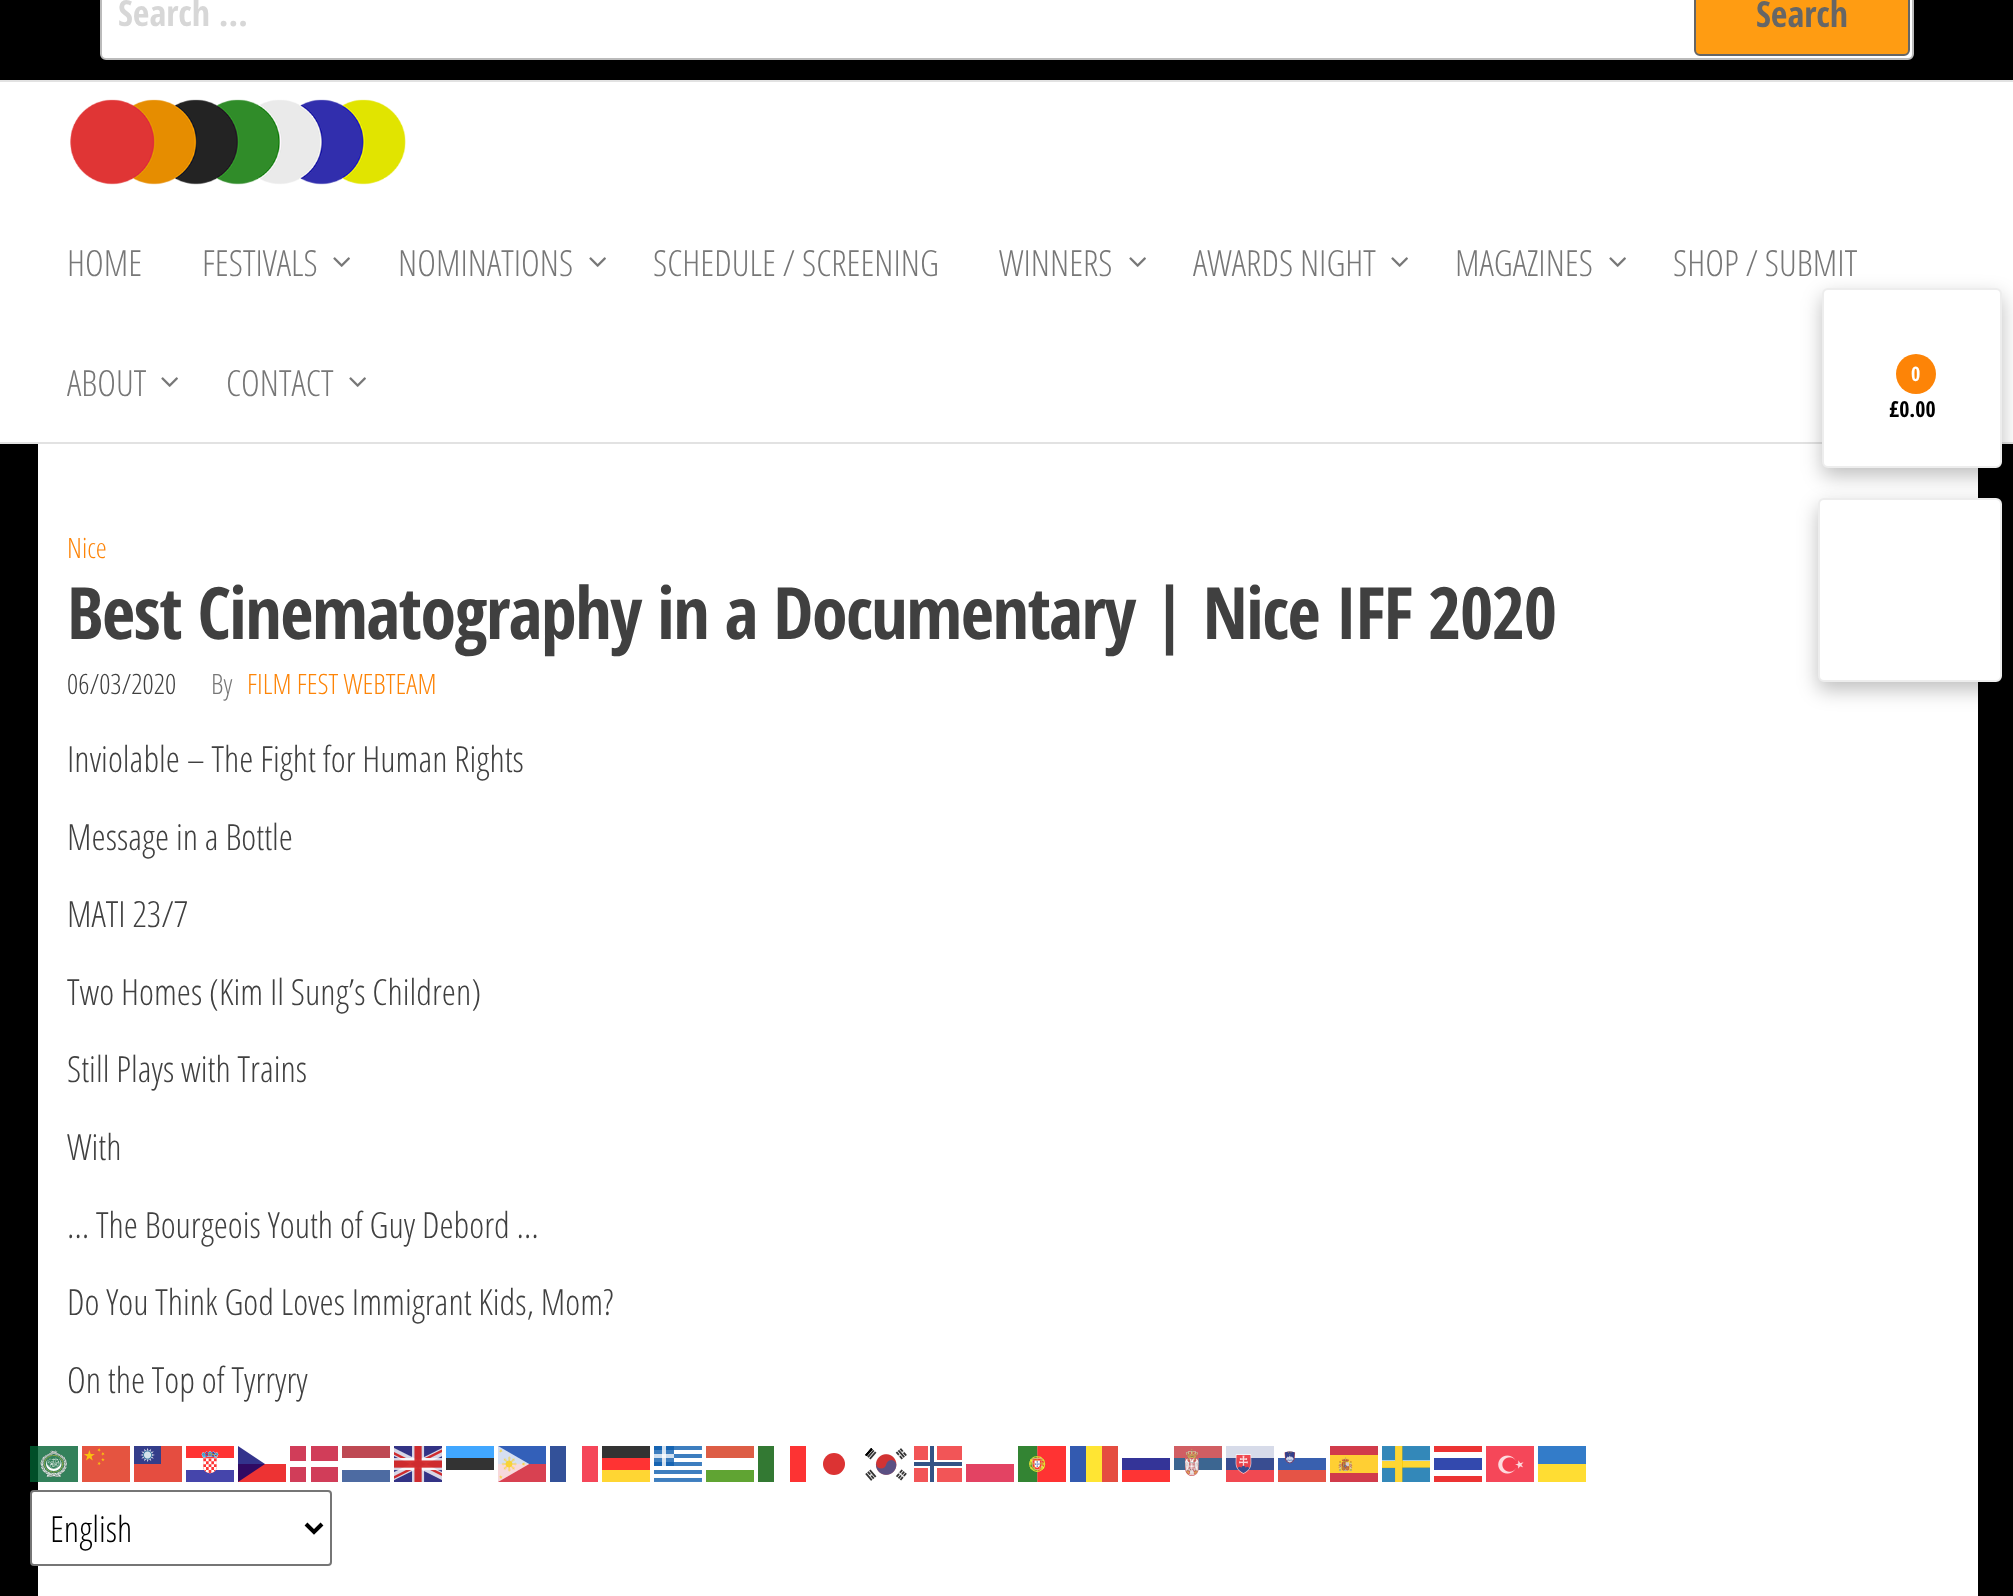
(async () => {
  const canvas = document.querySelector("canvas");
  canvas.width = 2013;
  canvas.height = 1596;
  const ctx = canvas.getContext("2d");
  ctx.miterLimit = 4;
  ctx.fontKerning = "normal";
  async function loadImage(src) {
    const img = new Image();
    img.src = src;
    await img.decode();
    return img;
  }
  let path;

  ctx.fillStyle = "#000000";
  ctx.fillRect(0, 0, 2013, 1596);
  ctx.fillStyle = "#ffffff";
  ctx.beginPath();
  ctx.roundRect(101, -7, 1812, 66, 5);
  ctx.fill();
  ctx.strokeStyle = "#bbbbbb";
  ctx.lineWidth = 2;
  ctx.stroke();
  ctx.fillStyle = "#ff9c12";
  ctx.beginPath();
  ctx.roundRect(1695, -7, 214, 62, 5);
  ctx.fill();
  ctx.strokeStyle = "#666666";
  ctx.stroke();
  for (const [x, y, w, h, color] of [
    [0, 82, 2013, 360, "#ffffff"],
    [0, 80, 2013, 2, "#e2e2e2"],
    [0, 442, 2013, 2, "#e2e2e2"],
  ]) {
    ctx.fillStyle = color;
    ctx.fillRect(x, y, w, h);
  }
  ctx.drawImage(await loadImage("img/1.png"), 70, 99, 336, 86);
  ctx.drawImage(await loadImage("img/2.png"), 333, 257, 17, 10);
  ctx.drawImage(await loadImage("img/2.png"), 589, 257, 17, 10);
  ctx.drawImage(await loadImage("img/2.png"), 1129, 257, 17, 10);
  ctx.drawImage(await loadImage("img/2.png"), 1391, 257, 17, 10);
  ctx.drawImage(await loadImage("img/2.png"), 1609, 257, 17, 10);
  ctx.drawImage(await loadImage("img/2.png"), 161, 377, 17, 10);
  ctx.drawImage(await loadImage("img/2.png"), 349, 377, 17, 10);
  ctx.fillStyle = "#ffffff";
  ctx.fillRect(38, 444, 1940, 1152);
  ctx.fillStyle = "rgba(0, 0, 0, 0.25)";
  ctx.filter = "blur(10px)";
  ctx.beginPath();
  ctx.roundRect(1818, 506, 184, 184, 6);
  ctx.fill();
  ctx.filter = "none";
  ctx.fillStyle = "#ffffff";
  ctx.beginPath();
  ctx.roundRect(1819, 499, 182, 182, 5);
  ctx.fill();
  ctx.strokeStyle = "#ededed";
  ctx.stroke();
  ctx.fillStyle = "rgba(0, 0, 0, 0.25)";
  ctx.filter = "blur(10px)";
  ctx.beginPath();
  ctx.roundRect(1822, 296, 180, 180, 6);
  ctx.fill();
  ctx.filter = "none";
  ctx.fillStyle = "#ffffff";
  ctx.beginPath();
  ctx.roundRect(1823, 289, 178, 178, 5);
  ctx.fill();
  ctx.stroke();
  ctx.fillStyle = "#fd8407";
  ctx.beginPath();
  ctx.arc(1916, 374, 20, 0, Math.PI * 2);
  ctx.fill();
  ctx.drawImage(await loadImage("img/3.png"), 30, 1446, 48, 36);
  ctx.drawImage(await loadImage("img/4.png"), 82, 1446, 48, 36);
  ctx.drawImage(await loadImage("img/5.png"), 134, 1446, 48, 36);
  ctx.drawImage(await loadImage("img/6.png"), 186, 1446, 48, 36);
  ctx.fillStyle = "rgba(232, 0, 0, 0.8)";
  ctx.fillRect(238, 1464, 48, 18);
  ctx.fillStyle = "rgba(0, 0, 111, 0.8)";
  path = new Path2D("M238 1446L265 1464L238 1482Z");
  ctx.fill(path, "evenodd");
  for (const [x, y, w, h, color] of [
    [290, 1446, 48, 36, "#d13d59"],
    [306, 1446, 5, 36, "#ffffff"],
    [342, 1446, 48, 12, "#be4953"],
  ]) {
    ctx.fillStyle = color;
    ctx.fillRect(x, y, w, h);
  }
  ctx.drawImage(await loadImage("img/7.png"), 394, 1446, 48, 36);
  ctx.fillStyle = "#41a7ff";
  ctx.fillRect(446, 1446, 48, 12);
  ctx.drawImage(await loadImage("img/8.png"), 498, 1446, 48, 36);
  for (const [x, y, w, h, color] of [
    [550, 1446, 16, 36, "#335199"],
    [582, 1446, 16, 36, "#f54659"],
    [602, 1446, 48, 12, "#333333"],
  ]) {
    ctx.fillStyle = color;
    ctx.fillRect(x, y, w, h);
  }
  ctx.drawImage(await loadImage("img/9.png"), 654, 1446, 48, 36);
  for (const [x, y, w, h, color] of [
    [706, 1446, 48, 12, "#dd5d45"],
    [758, 1446, 16, 36, "#337933"],
    [790, 1446, 16, 36, "#fd3333"],
    [914, 1446, 48, 36, "#f25557"],
    [928, 1446, 9, 36, "#ffffff"],
    [446, 1458, 48, 12, "#333333"],
    [602, 1458, 48, 12, "#ff3333"],
  ]) {
    ctx.fillStyle = color;
    ctx.fillRect(x, y, w, h);
  }
  ctx.fillStyle = "#dc3333";
  ctx.beginPath();
  ctx.arc(834, 1464, 11, 0, Math.PI * 2);
  ctx.fill();
  ctx.drawImage(await loadImage("img/10.png"), 865, 1448, 42, 33);
  ctx.fillStyle = "#ffffff";
  ctx.fillRect(914, 1460, 48, 8);
  ctx.fillStyle = "#335386";
  ctx.fillRect(930, 1446, 4, 36);
  ctx.drawImage(await loadImage("img/11.png"), 1018, 1446, 48, 36);
  for (const [x, y, w, h, color] of [
    [1070, 1446, 16, 36, "#335ab0"],
    [1086, 1446, 16, 36, "#ffe533"],
    [1102, 1446, 16, 36, "#e54d40"],
    [1122, 1458, 48, 12, "#343498"],
  ]) {
    ctx.fillStyle = color;
    ctx.fillRect(x, y, w, h);
  }
  ctx.drawImage(await loadImage("img/12.png"), 1174, 1446, 48, 30);
  ctx.drawImage(await loadImage("img/13.png"), 1226, 1446, 48, 36);
  ctx.drawImage(await loadImage("img/14.png"), 1278, 1451, 48, 31);
  ctx.drawImage(await loadImage("img/15.png"), 1330, 1446, 48, 36);
  ctx.drawImage(await loadImage("img/16.png"), 1382, 1446, 48, 36);
  ctx.fillStyle = "#3349ae";
  ctx.fillRect(1434, 1458, 48, 12);
  ctx.fillStyle = "#ec3333";
  path = new Path2D("M1434 1446H1482V1452H1434ZM1434 1476H1482V1482H1434Z");
  ctx.fill(path, "evenodd");
  ctx.drawImage(await loadImage("img/17.png"), 1486, 1446, 48, 36);
  for (const [x, y, w, h, color] of [
    [1538, 1446, 48, 18, "#337cc9"],
    [290, 1461, 48, 6, "#ffffff"],
    [342, 1470, 48, 12, "#4d6ba2"],
    [602, 1470, 48, 12, "#ffd633"],
    [706, 1470, 48, 12, "#60a433"],
    [914, 1462, 48, 4, "#335386"],
    [966, 1464, 48, 18, "#e34363"],
    [1122, 1470, 48, 12, "#fe3434"],
    [1538, 1464, 48, 18, "#ffdd33"],
  ]) {
    ctx.fillStyle = color;
    ctx.fillRect(x, y, w, h);
  }
  ctx.fillStyle = "#ffffff";
  ctx.beginPath();
  ctx.roundRect(31, 1491, 300, 74, 3);
  ctx.fill();
  ctx.strokeStyle = "#767676";
  ctx.stroke();
  path = new Path2D("M306 1524L314 1532L322 1524");
  ctx.strokeStyle = "#000000";
  ctx.lineWidth = 4;
  ctx.stroke(path);
  ctx.font = "bold 36px Open Sans Condensed";
  ctx.fillStyle = "#d7d7d7";
  ctx.fillText("Search …", 118, 26);
  ctx.fillStyle = "#666666";
  ctx.fillText("Search", 1756, 27);
  ctx.font = "300 36px Open Sans Condensed";
  ctx.fillStyle = "#777777";
  for (const [text, x, y] of [
    ["HOME", 67, 276],
    ["FESTIVALS", 202, 276],
    ["NOMINATIONS", 398, 276],
    ["SCHEDULE / SCREENING", 653, 276],
    ["WINNERS", 999, 276],
    ["AWARDS NIGHT", 1193, 276],
    ["MAGAZINES", 1455, 276],
    ["SHOP / SUBMIT", 1673, 276],
    ["ABOUT", 67, 396],
    ["CONTACT", 226, 396],
  ]) {
    ctx.fillText(text, x, y);
  }
  ctx.font = "300 28px Open Sans Condensed";
  ctx.fillStyle = "#fd8407";
  ctx.fillText("Nice", 67, 558);
  ctx.letterSpacing = "-1.45px";
  ctx.font = "bold 72px Open Sans Condensed";
  ctx.fillStyle = "#404040";
  ctx.fillText("Best Cinematography in a Documentary | Nice IFF 2020", 67, 639);
  ctx.letterSpacing = "0px";
  ctx.font = "300 28px Open Sans Condensed";
  ctx.fillText("06/03/2020", 67, 694);
  ctx.fillStyle = "#777777";
  ctx.fillText("By", 211, 694);
  ctx.fillStyle = "#fd8407";
  ctx.fillText("FILM FEST WEBTEAM", 247, 694);
  ctx.font = "300 36px Open Sans Condensed";
  ctx.fillStyle = "#404040";
  for (const [text, x, y] of [
    ["Inviolable – The Fight for Human Rights", 67, 772],
    ["Message in a Bottle", 67, 850],
    ["MATI 23/7", 67, 927],
    ["Two Homes (Kim Il Sung’s Children)", 67, 1005],
    ["Still Plays with Trains", 67, 1082],
    ["With", 67, 1160],
    ["… The Bourgeois Youth of Guy Debord …", 67, 1238],
    ["Do You Think God Loves Immigrant Kids, Mom?", 67, 1315],
    ["On the Top of Tyrryry", 67, 1393],
  ]) {
    ctx.fillText(text, x, y);
  }
  ctx.font = "bold 20px Open Sans Condensed";
  ctx.fillStyle = "#ffffff";
  ctx.fillText("0", 1911, 381);
  ctx.font = "bold 22px Open Sans Condensed";
  ctx.fillStyle = "#000000";
  ctx.fillText("£0.00", 1889, 417);
  ctx.font = "300 36px Open Sans Condensed";
  ctx.fillText("English", 50, 1542);
})();
